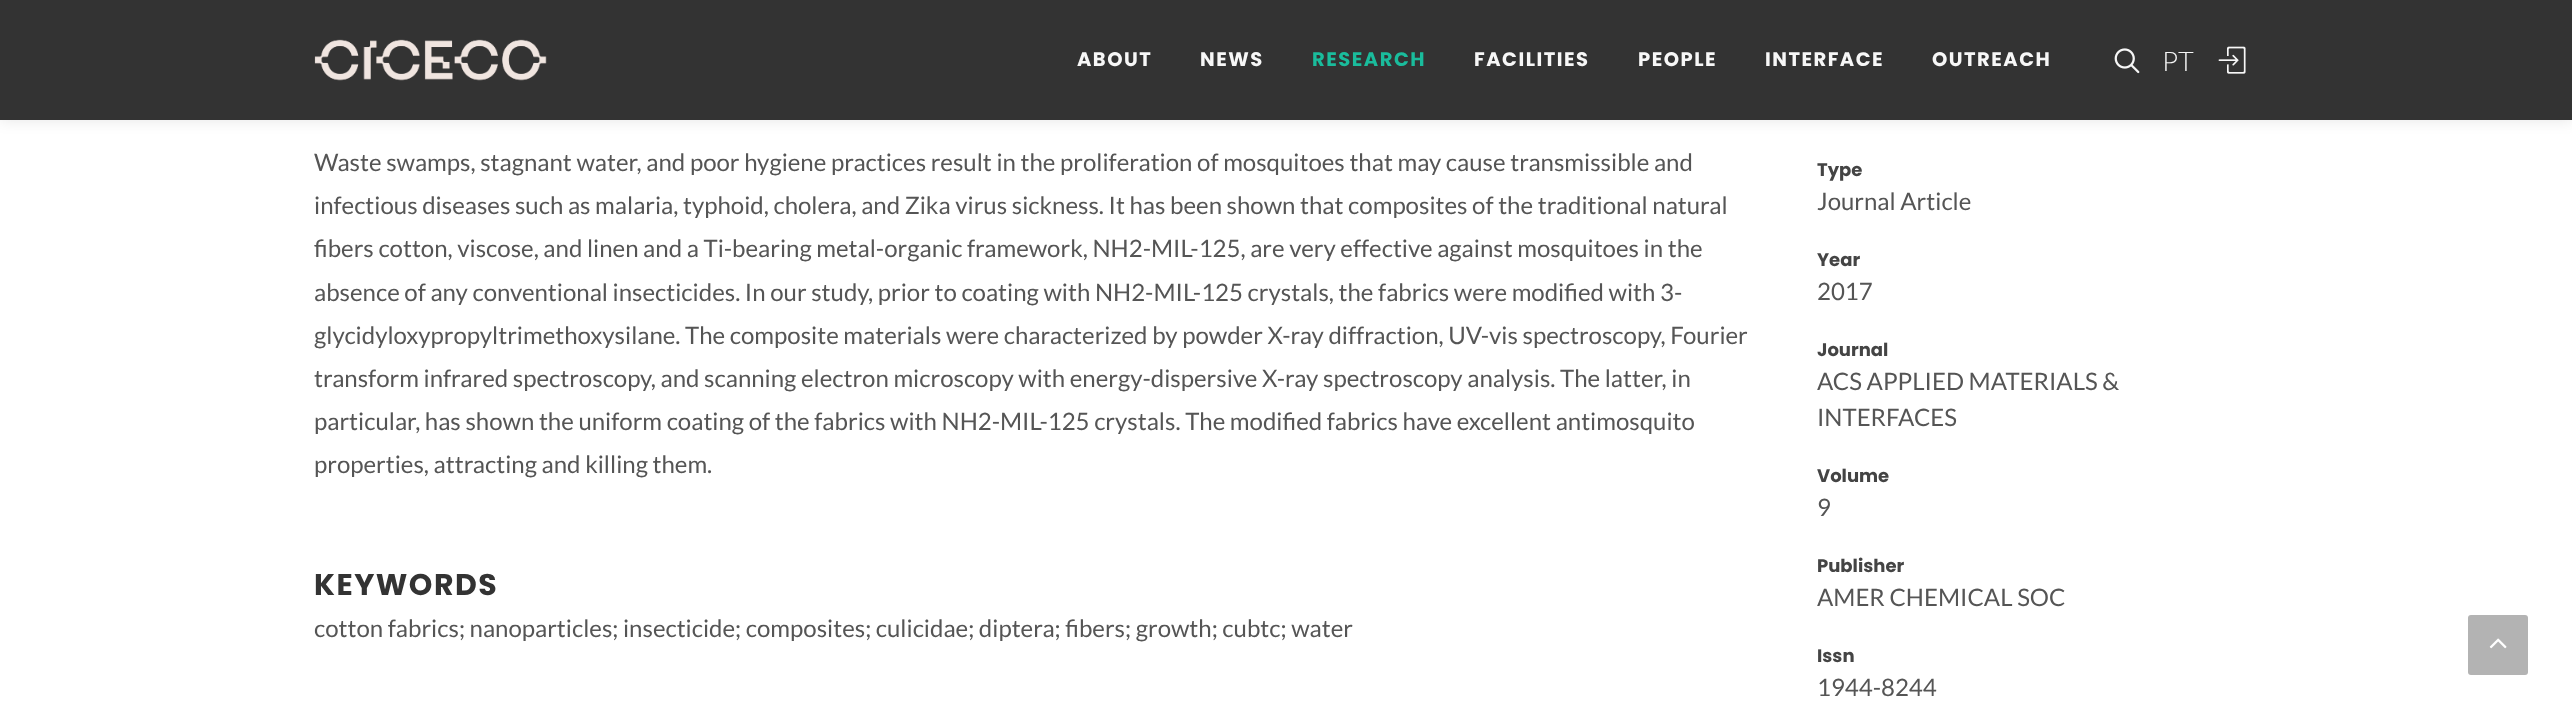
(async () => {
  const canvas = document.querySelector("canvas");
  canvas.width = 2572;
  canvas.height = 720;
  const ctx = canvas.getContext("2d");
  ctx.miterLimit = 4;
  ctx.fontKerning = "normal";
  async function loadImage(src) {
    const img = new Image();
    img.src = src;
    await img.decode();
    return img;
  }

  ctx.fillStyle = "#ffffff";
  ctx.fillRect(0, 0, 2572, 720);
  ctx.fillStyle = "rgba(0, 0, 0, 0.1)";
  ctx.filter = "blur(7.5px)";
  ctx.beginPath();
  ctx.rect(0, 0, 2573, 120);
  ctx.fill();
  ctx.filter = "none";
  ctx.fillStyle = "#333333";
  ctx.fillRect(0, 0, 2572, 120);
  ctx.drawImage(await loadImage("img/1.png"), 314, 39, 233, 42);
  ctx.drawImage(await loadImage("img/2.png"), 2114, 48, 26, 26);
  ctx.drawImage(await loadImage("img/3.png"), 2218, 46, 28, 28);
  ctx.fillStyle = "#b3b3b3";
  ctx.beginPath();
  ctx.roundRect(2468, 615, 60, 60, 3);
  ctx.fill();
  ctx.drawImage(await loadImage("img/4.png"), 2489, 638, 18, 11);
  ctx.letterSpacing = "1.5px";
  ctx.font = "bold 19.5px Poppins";
  ctx.fillStyle = "#f7f7f7";
  ctx.fillText("ABOUT", 1077, 66);
  ctx.fillText("NEWS", 1200, 66);
  ctx.fillStyle = "#1abc9c";
  ctx.fillText("RESEARCH", 1312, 66);
  ctx.fillStyle = "#f7f7f7";
  for (const [text, x, y] of [
    ["FACILITIES", 1474, 66],
    ["PEOPLE", 1638, 66],
    ["INTERFACE", 1765, 66],
    ["OUTREACH", 1932, 66],
  ]) {
    ctx.fillText(text, x, y);
  }
  ctx.letterSpacing = "0px";
  ctx.font = "300 27px Lato";
  ctx.fillText("PT", 2162, 71);
  ctx.font = "24px Lato";
  ctx.fillStyle = "#555555";
  for (const [text, x, y] of [
    ["Waste swamps, stagnant water, and poor hygiene practices result in the proliferation of mosquitoes that may cause transmissible and", 314, 171],
    ["infectious diseases such as malaria, typhoid, cholera, and Zika virus sickness. It has been shown that composites of the traditional natural", 314, 214],
    ["fibers cotton, viscose, and linen and a Ti-bearing metal-organic framework, NH2-MIL-125, are very effective against mosquitoes in the", 314, 257],
    ["absence of any conventional insecticides. In our study, prior to coating with NH2-MIL-125 crystals, the fabrics were modified with 3-", 314, 301],
    ["glycidyloxypropyltrimethoxysilane. The composite materials were characterized by powder X-ray diffraction, UV-vis spectroscopy, Fourier", 314, 344],
    ["transform infrared spectroscopy, and scanning electron microscopy with energy-dispersive X-ray spectroscopy analysis. The latter, in", 314, 387],
    ["particular, has shown the uniform coating of the fabrics with NH2-MIL-125 crystals. The modified fabrics have excellent antimosquito", 314, 430],
    ["properties, attracting and killing them.", 314, 473],
  ]) {
    ctx.fillText(text, x, y);
  }
  ctx.letterSpacing = "1.5px";
  ctx.font = "bold 30px Poppins";
  ctx.fillStyle = "#333333";
  ctx.fillText("KEYWORDS", 314, 595);
  ctx.letterSpacing = "0px";
  ctx.font = "24px Lato";
  ctx.fillStyle = "#555555";
  ctx.fillText("cotton fabrics; nanoparticles; insecticide; composites; culicidae; diptera; fibers; growth; cubtc; water", 314, 637);
  ctx.font = "bold 18px Poppins";
  ctx.fillStyle = "#444444";
  ctx.fillText("Type", 1817, 176);
  ctx.font = "24px Lato";
  ctx.fillStyle = "#555555";
  ctx.fillText("Journal Article", 1817, 210);
  ctx.font = "bold 18px Poppins";
  ctx.fillStyle = "#444444";
  ctx.fillText("Year", 1817, 266);
  ctx.font = "24px Lato";
  ctx.fillStyle = "#555555";
  ctx.fillText("2017", 1817, 300);
  ctx.font = "bold 18px Poppins";
  ctx.fillStyle = "#444444";
  ctx.fillText("Journal", 1817, 356);
  ctx.font = "24px Lato";
  ctx.fillStyle = "#555555";
  ctx.fillText("ACS APPLIED MATERIALS &", 1817, 390);
  ctx.fillText("INTERFACES", 1817, 426);
  ctx.font = "bold 18px Poppins";
  ctx.fillStyle = "#444444";
  ctx.fillText("Volume", 1817, 482);
  ctx.font = "24px Lato";
  ctx.fillStyle = "#555555";
  ctx.fillText("9", 1817, 516);
  ctx.font = "bold 18px Poppins";
  ctx.fillStyle = "#444444";
  ctx.fillText("Publisher", 1817, 572);
  ctx.font = "24px Lato";
  ctx.fillStyle = "#555555";
  ctx.fillText("AMER CHEMICAL SOC", 1817, 606);
  ctx.font = "bold 18px Poppins";
  ctx.fillStyle = "#444444";
  ctx.fillText("Issn", 1817, 662);
  ctx.font = "24px Lato";
  ctx.fillStyle = "#555555";
  ctx.fillText("1944-8244", 1817, 696);
})();
